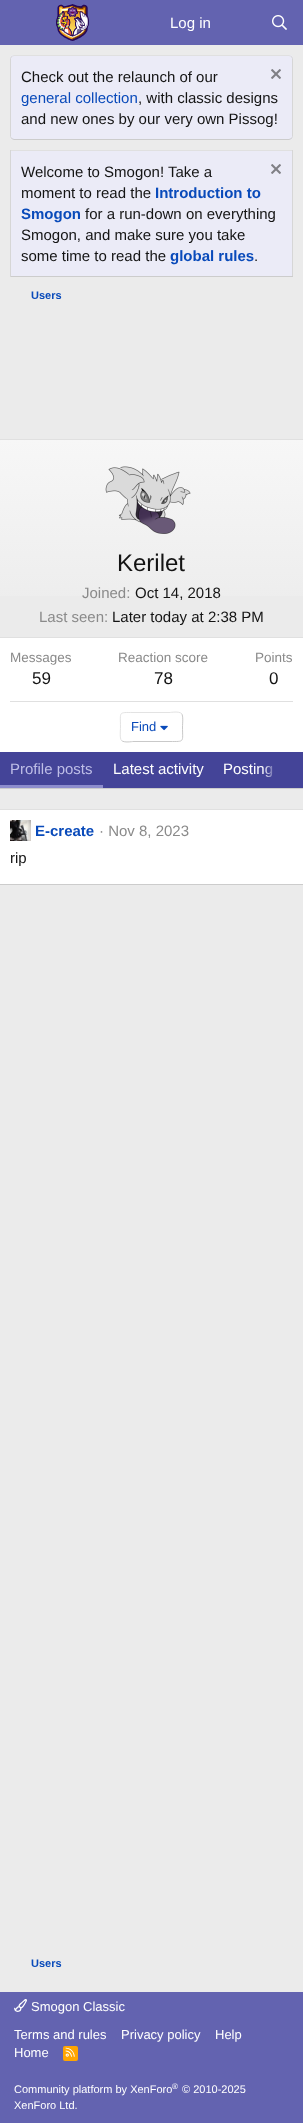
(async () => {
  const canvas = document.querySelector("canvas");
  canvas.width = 303;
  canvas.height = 2123;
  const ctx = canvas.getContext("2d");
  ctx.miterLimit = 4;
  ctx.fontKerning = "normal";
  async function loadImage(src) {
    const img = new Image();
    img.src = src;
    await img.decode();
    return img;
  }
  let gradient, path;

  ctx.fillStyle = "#ebebeb";
  ctx.fillRect(0, 0, 303, 2123);
  ctx.fillStyle = "#6363b0";
  ctx.fillRect(0, 0, 303, 45);
  ctx.drawImage(await loadImage("img/1.png"), 56, 4, 33, 37);
  ctx.drawImage(await loadImage("img/2.png"), 272, 15, 15, 15);
  ctx.fillStyle = "#ebebf7";
  ctx.beginPath();
  ctx.roundRect(10, 55, 283, 85, 4);
  ctx.fill();
  path = new Path2D("M11.5 56.5L14 55.5H289L291.5 56.5");
  ctx.strokeStyle = "#e0e0e0";
  ctx.stroke(path);
  path = new Path2D("M291.5 56.5L292.5 58.5V136.5L291.5 138.5");
  ctx.strokeStyle = "#d6d6d6";
  ctx.stroke(path);
  path = new Path2D("M291.5 138.5L289 139.5H14L11.5 138.5");
  ctx.strokeStyle = "#cccccc";
  ctx.stroke(path);
  path = new Path2D("M11.5 138.5L10.5 136.5V58.5L11.5 56.5");
  ctx.strokeStyle = "#d6d6d6";
  ctx.stroke(path);
  ctx.drawImage(await loadImage("img/3.png"), 271, 69, 10, 10);
  for (const [x, y, w, h, color] of [
    [10, 150, 283, 1, "#e0e0e0"],
    [292, 150, 1, 127, "#d6d6d6"],
    [10, 276, 283, 1, "#cccccc"],
    [10, 150, 1, 127, "#d6d6d6"],
    [11, 151, 281, 125, "#ebebf7"],
  ]) {
    ctx.fillStyle = color;
    ctx.fillRect(x, y, w, h);
  }
  ctx.drawImage(await loadImage("img/3.png"), 271, 164, 10, 10);
  for (const [x, y, w, h, color] of [
    [0, 638, 303, 114, "#ffffff"],
    [0, 439, 303, 1, "#e0e0e0"],
    [0, 788, 303, 1, "#cccccc"],
  ]) {
    ctx.fillStyle = color;
    ctx.fillRect(x, y, w, h);
  }
  gradient = ctx.createLinearGradient(152, 637, 152, 440);
  gradient.addColorStop(0, "#ebebeb");
  gradient.addColorStop(1, "#f7f7f7");
  ctx.fillStyle = gradient;
  ctx.fillRect(0, 440, 303, 156);
  ctx.fillStyle = "#e0e0e0";
  ctx.fillRect(0, 637, 303, 1);
  ctx.drawImage(await loadImage("img/4.png"), 105, 466, 86, 68);
  ctx.fillRect(10, 701, 283, 1);
  path = new Path2D("M181.5 713.5C183.5 715.5 182.5 724 182.5 727C182.5 742.5 185 741.5 170 741.5H133C132.5 741.5 124 743 121.5 740.5");
  ctx.strokeStyle = "#c9c9c9";
  ctx.stroke(path);
  path = new Path2D("M121.5 740.5C119.5 738.5 120.5 730 120.5 727C120.5 711.5 118 712.5 133 712.5H170C170.5 712.5 179 711 181.5 713.5");
  ctx.strokeStyle = "#e3e3e3";
  ctx.stroke(path);
  ctx.drawImage(await loadImage("img/5.png"), 160, 725, 8, 6);
  for (const [x, y, w, h, color] of [
    [0, 752, 276, 36, "#444498"],
    [0, 785, 103, 3, "#8d8dcd"],
    [0, 810, 303, 74, "#ffffff"],
    [0, 809, 303, 1, "#e0e0e0"],
    [0, 884, 303, 1, "#cccccc"],
  ]) {
    ctx.fillStyle = color;
    ctx.fillRect(x, y, w, h);
  }
  ctx.drawImage(await loadImage("img/6.png"), 10, 820, 21, 21);
  ctx.fillStyle = "#6363b0";
  ctx.fillRect(0, 1992, 303, 131);
  ctx.drawImage(await loadImage("img/7.png"), 14, 1999, 13, 13);
  ctx.fillStyle = "#ffa500";
  ctx.beginPath();
  ctx.roundRect(63, 2046, 15, 15, 2);
  ctx.fill();
  ctx.drawImage(await loadImage("img/8.png"), 65, 2047, 10, 10);
  ctx.font = "15px Liberation Sans";
  ctx.fillStyle = "#ffffff";
  ctx.fillText("Log in", 170, 28);
  ctx.fillStyle = "#141414";
  ctx.fillText("Check out the relaunch of our", 21, 82);
  ctx.fillStyle = "#094aba";
  ctx.fillText("general collection", 21, 103);
  ctx.fillStyle = "#141414";
  for (const [text, x, y] of [
    [", with classic designs", 138, 103],
    ["and new ones by our very own Pissog!", 21, 124],
    ["Welcome to Smogon! Take a", 21, 177],
    ["moment to read the", 21, 198],
  ]) {
    ctx.fillText(text, x, y);
  }
  ctx.font = "bold 15px Liberation Sans";
  ctx.fillStyle = "#094aba";
  ctx.fillText("Introduction to", 155, 198);
  ctx.fillText("Smogon", 21, 219);
  ctx.font = "15px Liberation Sans";
  ctx.fillStyle = "#141414";
  for (const [text, x, y] of [
    ["for a run-down on everything", 85, 219],
    ["Smogon, and make sure you take", 21, 240],
    ["some time to read the", 21, 261],
  ]) {
    ctx.fillText(text, x, y);
  }
  ctx.font = "bold 15px Liberation Sans";
  ctx.fillStyle = "#094aba";
  ctx.fillText("global rules", 170, 261);
  ctx.font = "15px Liberation Sans";
  ctx.fillStyle = "#141414";
  ctx.fillText(".", 254, 261);
  ctx.font = "bold 11px Liberation Sans";
  ctx.fillStyle = "#094aba";
  ctx.fillText("Users", 31, 299);
  ctx.font = "24px Liberation Sans";
  ctx.fillStyle = "#141414";
  ctx.fillText("Kerilet", 117, 571);
  ctx.font = "15px Liberation Sans";
  ctx.fillStyle = "#8a8a8a";
  ctx.fillText("Joined:", 82, 598);
  ctx.fillStyle = "#141414";
  ctx.fillText("Oct 14, 2018", 135, 598);
  ctx.fillStyle = "#8a8a8a";
  ctx.fillText("Last seen:", 39, 622);
  ctx.fillStyle = "#141414";
  ctx.fillText("Later today at 2:38 PM", 112, 622);
  ctx.font = "13.5px Liberation Sans";
  ctx.fillStyle = "#8a8a8a";
  ctx.fillText("Messages", 10, 662);
  ctx.font = "17px Liberation Sans";
  ctx.fillStyle = "#141414";
  ctx.fillText("59", 32, 684);
  ctx.font = "13.5px Liberation Sans";
  ctx.fillStyle = "#8a8a8a";
  ctx.fillText("Reaction score", 118, 662);
  ctx.font = "17px Liberation Sans";
  ctx.fillStyle = "#141414";
  ctx.fillText("78", 154, 684);
  ctx.font = "13.5px Liberation Sans";
  ctx.fillStyle = "#8a8a8a";
  ctx.fillText("Points", 255, 662);
  ctx.font = "17px Liberation Sans";
  ctx.fillStyle = "#141414";
  ctx.fillText("0", 269, 684);
  ctx.font = "13px Liberation Sans";
  ctx.fillStyle = "#094aba";
  ctx.fillText("Find", 131, 731);
  ctx.font = "15px Liberation Sans";
  ctx.fillStyle = "#bebee7";
  ctx.fillText("Profile posts", 10, 774);
  ctx.fillStyle = "#ffffff";
  ctx.fillText("Latest activity", 113, 774);
  ctx.fillText("Posting", 223, 774);
  gradient = ctx.createLinearGradient(263, 770, 303, 770);
  gradient.addColorStop(0, "rgba(68, 68, 152, 0)");
  gradient.addColorStop(0.33, "#444498");
  ctx.fillStyle = gradient;
  ctx.fillRect(263, 752, 40, 36);
  ctx.font = "bold 15px Liberation Sans";
  ctx.fillStyle = "#094aba";
  ctx.fillText("E-create", 35, 836);
  ctx.font = "15px Liberation Sans";
  ctx.fillStyle = "#8a8a8a";
  ctx.fillText("· Nov 8, 2023", 99, 836);
  ctx.fillStyle = "#141414";
  ctx.fillText("rip", 10, 863);
  ctx.font = "bold 11px Liberation Sans";
  ctx.fillStyle = "#094aba";
  ctx.fillText("Users", 31, 1967);
  ctx.font = "13px Liberation Sans";
  ctx.fillStyle = "#ffffff";
  for (const [text, x, y] of [
    ["Smogon Classic", 31, 2011],
    ["Terms and rules", 14, 2039],
    ["Privacy policy", 121, 2039],
    ["Help", 215, 2039],
    ["Home", 14, 2057],
  ]) {
    ctx.fillText(text, x, y);
  }
  ctx.font = "11px Liberation Sans";
  ctx.fillText("Community platform by XenForo", 14, 2093);
  ctx.font = "8px Liberation Sans";
  ctx.fillText("®", 172, 2089);
  ctx.font = "11px Liberation Sans";
  ctx.fillText("© 2010-2025", 182, 2093);
  ctx.fillText("XenForo Ltd.", 14, 2109);
})();
